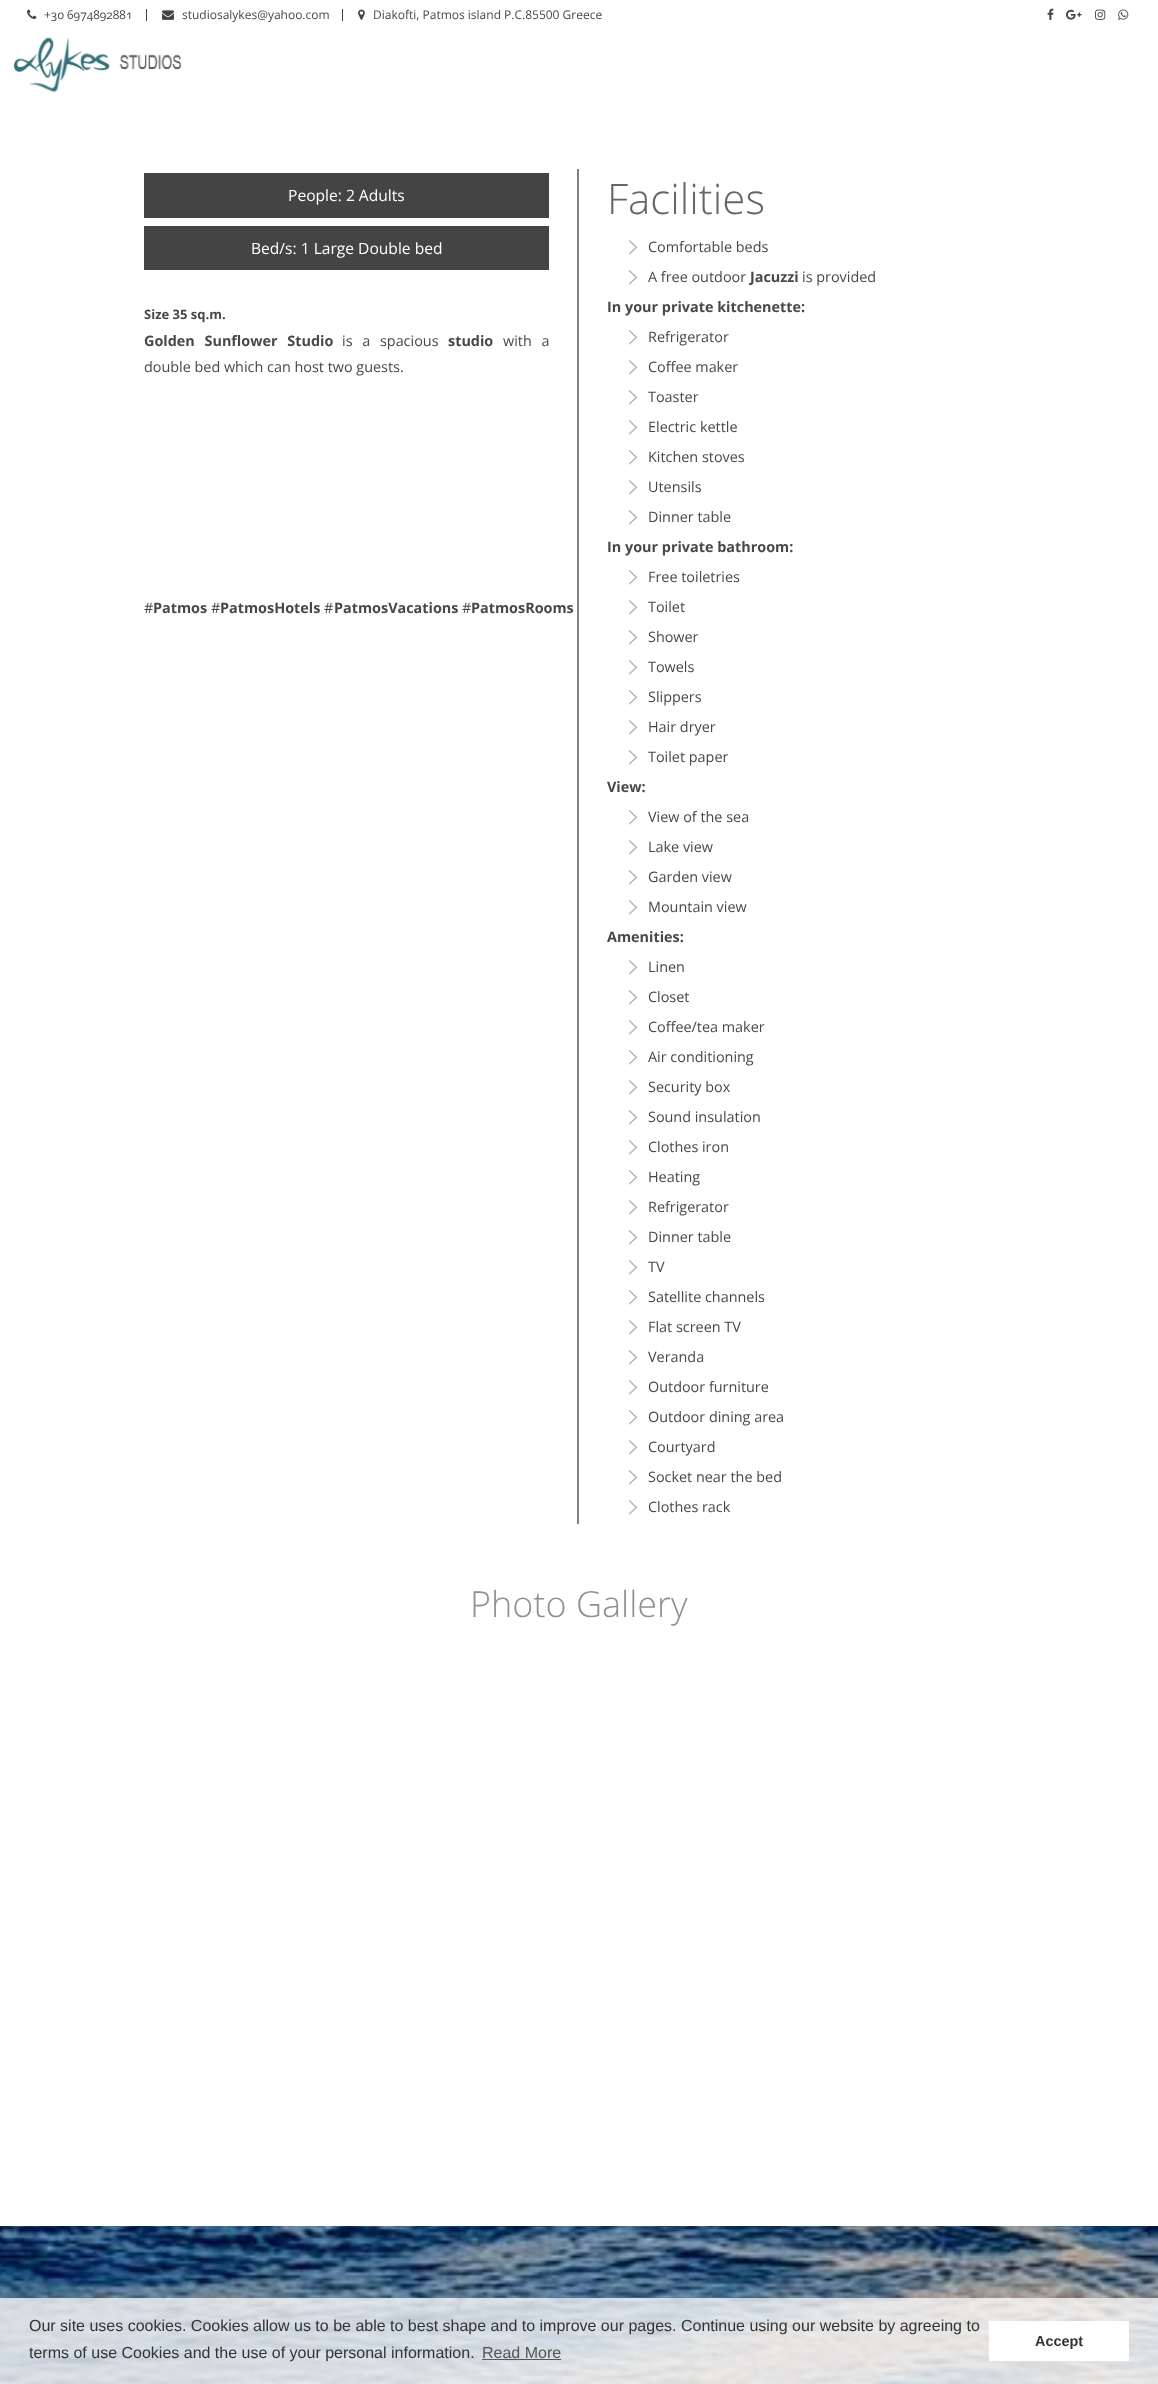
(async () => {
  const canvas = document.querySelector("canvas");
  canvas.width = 1158;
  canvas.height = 2384;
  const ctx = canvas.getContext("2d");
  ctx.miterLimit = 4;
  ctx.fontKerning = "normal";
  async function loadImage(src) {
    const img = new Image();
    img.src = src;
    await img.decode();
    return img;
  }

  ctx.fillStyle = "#ffffff";
  ctx.fillRect(0, 0, 1158, 2384);
  ctx.drawImage(await loadImage("img/1.png"), 27, 9, 10, 10);
  ctx.fillStyle = "#444444";
  ctx.fillRect(146, 9, 1, 12);
  ctx.drawImage(await loadImage("img/2.png"), 162, 10, 12, 10);
  ctx.fillRect(342, 9, 1, 12);
  ctx.drawImage(await loadImage("img/3.png"), 358, 9, 7, 11);
  ctx.drawImage(await loadImage("img/4.png"), 1047, 8, 7, 12);
  ctx.drawImage(await loadImage("img/5.png"), 1066, 9, 16, 11);
  ctx.drawImage(await loadImage("img/6.png"), 1095, 9, 11, 11);
  ctx.drawImage(await loadImage("img/7.png"), 1118, 9, 11, 11);
  ctx.drawImage(await loadImage("img/8.png"), 13, 37, 169, 56);
  for (const [x, y, w, h, color] of [
    [577, 169, 2, 1355, "#808080"],
    [144, 173, 405, 45, "#444444"],
    [144, 226, 405, 44, "#444444"],
  ]) {
    ctx.fillStyle = color;
    ctx.fillRect(x, y, w, h);
  }
  ctx.drawImage(await loadImage("img/9.png"), 629, 240, 8, 15);
  ctx.drawImage(await loadImage("img/9.png"), 629, 270, 8, 15);
  ctx.drawImage(await loadImage("img/9.png"), 629, 330, 8, 15);
  ctx.drawImage(await loadImage("img/9.png"), 629, 360, 8, 15);
  ctx.drawImage(await loadImage("img/9.png"), 629, 390, 8, 15);
  ctx.drawImage(await loadImage("img/9.png"), 629, 420, 8, 15);
  ctx.drawImage(await loadImage("img/9.png"), 629, 450, 8, 15);
  ctx.drawImage(await loadImage("img/9.png"), 629, 480, 8, 15);
  ctx.drawImage(await loadImage("img/9.png"), 629, 510, 8, 15);
  ctx.drawImage(await loadImage("img/9.png"), 629, 570, 8, 15);
  ctx.drawImage(await loadImage("img/9.png"), 629, 600, 8, 15);
  ctx.drawImage(await loadImage("img/9.png"), 629, 630, 8, 15);
  ctx.drawImage(await loadImage("img/9.png"), 629, 660, 8, 15);
  ctx.drawImage(await loadImage("img/9.png"), 629, 690, 8, 15);
  ctx.drawImage(await loadImage("img/9.png"), 629, 720, 8, 15);
  ctx.drawImage(await loadImage("img/9.png"), 629, 750, 8, 15);
  ctx.drawImage(await loadImage("img/9.png"), 629, 810, 8, 15);
  ctx.drawImage(await loadImage("img/9.png"), 629, 840, 8, 15);
  ctx.drawImage(await loadImage("img/9.png"), 629, 870, 8, 15);
  ctx.drawImage(await loadImage("img/9.png"), 629, 900, 8, 15);
  ctx.drawImage(await loadImage("img/9.png"), 629, 960, 8, 15);
  ctx.drawImage(await loadImage("img/9.png"), 629, 990, 8, 15);
  ctx.drawImage(await loadImage("img/9.png"), 629, 1020, 8, 15);
  ctx.drawImage(await loadImage("img/9.png"), 629, 1050, 8, 15);
  ctx.drawImage(await loadImage("img/9.png"), 629, 1080, 8, 15);
  ctx.drawImage(await loadImage("img/9.png"), 629, 1110, 8, 15);
  ctx.drawImage(await loadImage("img/9.png"), 629, 1140, 8, 15);
  ctx.drawImage(await loadImage("img/9.png"), 629, 1170, 8, 15);
  ctx.drawImage(await loadImage("img/9.png"), 629, 1200, 8, 15);
  ctx.drawImage(await loadImage("img/9.png"), 629, 1230, 8, 15);
  ctx.drawImage(await loadImage("img/9.png"), 629, 1260, 8, 15);
  ctx.drawImage(await loadImage("img/9.png"), 629, 1290, 8, 15);
  ctx.drawImage(await loadImage("img/9.png"), 629, 1320, 8, 15);
  ctx.drawImage(await loadImage("img/9.png"), 629, 1350, 8, 15);
  ctx.drawImage(await loadImage("img/9.png"), 629, 1380, 8, 15);
  ctx.drawImage(await loadImage("img/9.png"), 629, 1410, 8, 15);
  ctx.drawImage(await loadImage("img/9.png"), 629, 1440, 8, 15);
  ctx.drawImage(await loadImage("img/9.png"), 629, 1470, 8, 15);
  ctx.drawImage(await loadImage("img/9.png"), 629, 1500, 8, 15);
  ctx.drawImage(await loadImage("img/10.png"), 0, 2226, 1158, 158);
  for (const [x, y, w, h, color] of [
    [0, 2298, 1158, 86, "rgba(255, 255, 255, 0.75)"],
    [482, 2359, 79, 1, "rgba(51, 51, 51, 0.8)"],
    [989, 2321, 140, 40, "#ffffff"],
  ]) {
    ctx.fillStyle = color;
    ctx.fillRect(x, y, w, h);
  }
  ctx.font = "12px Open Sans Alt";
  ctx.fillStyle = "#484848";
  ctx.fillText("+30 6974892881", 44, 19);
  ctx.font = "12px Open Sans";
  ctx.fillText("studiosalykes@yahoo.com", 182, 19);
  ctx.fillText("Diakofti, Patmos island P.C.85500 Greece", 373, 19);
  ctx.font = "15.6px Open Sans";
  ctx.fillStyle = "#ffffff";
  ctx.fillText("People: 2 Adults", 288, 201);
  ctx.fillText("Bed/s: 1 Large Double bed", 251, 254);
  ctx.font = "bold 13px Open Sans";
  ctx.fillStyle = "#484848";
  ctx.fillText("Size 35 sq.m.", 144, 319);
  ctx.wordSpacing = "6px";
  ctx.font = "bold 14.4px Open Sans";
  ctx.fillText("Golden Sunflower Studio", 144, 346);
  ctx.font = "14.4px Open Sans";
  ctx.fillText("is a spacious", 342, 346);
  ctx.wordSpacing = "0px";
  ctx.font = "bold 14.4px Open Sans";
  ctx.fillText("studio", 448, 346);
  ctx.wordSpacing = "6px";
  ctx.font = "14.4px Open Sans";
  ctx.fillText("with a", 503, 346);
  ctx.wordSpacing = "0px";
  ctx.fillText("double bed which can host two guests.", 144, 372);
  ctx.fillText("#", 144, 613);
  ctx.font = "bold 14.4px Open Sans";
  ctx.fillText("Patmos", 153, 613);
  ctx.font = "14.4px Open Sans";
  ctx.fillText("#", 211, 613);
  ctx.font = "bold 14.4px Open Sans";
  ctx.fillText("PatmosHotels", 220, 613);
  ctx.font = "14.4px Open Sans";
  ctx.fillText("#", 324, 613);
  ctx.font = "bold 14.4px Open Sans";
  ctx.fillText("PatmosVacations", 334, 613);
  ctx.font = "14.4px Open Sans";
  ctx.fillText("#", 462, 613);
  ctx.font = "bold 14.4px Open Sans";
  ctx.fillText("PatmosRooms", 471, 613);
  ctx.font = "300 42px Open Sans";
  ctx.fillStyle = "#666666";
  ctx.fillText("Facilities", 607, 214);
  ctx.font = "14.4px Open Sans";
  ctx.fillStyle = "#484848";
  ctx.fillText("Comfortable beds", 648, 252);
  ctx.fillText("A free outdoor", 648, 282);
  ctx.font = "bold 14.4px Open Sans";
  ctx.fillText("Jacuzzi", 750, 282);
  ctx.font = "14.4px Open Sans";
  ctx.fillText("is provided", 802, 282);
  ctx.font = "bold 14.4px Open Sans";
  ctx.fillText("In your private kitchenette:", 607, 312);
  ctx.font = "14.4px Open Sans";
  for (const [text, x, y] of [
    ["Refrigerator", 648, 342],
    ["Coffee maker", 648, 372],
    ["Toaster", 648, 402],
    ["Electric kettle", 648, 432],
    ["Kitchen stoves", 648, 462],
    ["Utensils", 648, 492],
    ["Dinner table", 648, 522],
  ]) {
    ctx.fillText(text, x, y);
  }
  ctx.font = "bold 14.4px Open Sans";
  ctx.fillText("In your private bathroom:", 607, 552);
  ctx.font = "14.4px Open Sans";
  for (const [text, x, y] of [
    ["Free toiletries", 648, 582],
    ["Toilet", 648, 612],
    ["Shower", 648, 642],
    ["Towels", 648, 672],
    ["Slippers", 648, 702],
    ["Hair dryer", 648, 732],
    ["Toilet paper", 648, 762],
  ]) {
    ctx.fillText(text, x, y);
  }
  ctx.font = "bold 14.4px Open Sans";
  ctx.fillText("View:", 607, 792);
  ctx.font = "14.4px Open Sans";
  for (const [text, x, y] of [
    ["View of the sea", 648, 822],
    ["Lake view", 648, 852],
    ["Garden view", 648, 882],
    ["Mountain view", 648, 912],
  ]) {
    ctx.fillText(text, x, y);
  }
  ctx.font = "bold 14.4px Open Sans";
  ctx.fillText("Amenities:", 607, 942);
  ctx.font = "14.4px Open Sans";
  for (const [text, x, y] of [
    ["Linen", 648, 972],
    ["Closet", 648, 1002],
    ["Coffee/tea maker", 648, 1032],
    ["Air conditioning", 648, 1062],
    ["Security box", 648, 1092],
    ["Sound insulation", 648, 1122],
    ["Clothes iron", 648, 1152],
    ["Heating", 648, 1182],
    ["Refrigerator", 648, 1212],
    ["Dinner table", 648, 1242],
    ["TV", 648, 1272],
    ["Satellite channels", 648, 1302],
    ["Flat screen TV", 648, 1332],
    ["Veranda", 648, 1362],
    ["Outdoor furniture", 648, 1392],
    ["Outdoor dining area", 648, 1422],
    ["Courtyard", 648, 1452],
    ["Socket near the bed", 648, 1482],
    ["Clothes rack", 648, 1512],
  ]) {
    ctx.fillText(text, x, y);
  }
  ctx.font = "300 36px Open Sans";
  ctx.fillStyle = "#919090";
  ctx.fillText("Photo Gallery", 470, 1617);
  ctx.font = "16px Liberation Sans";
  ctx.fillStyle = "#333333";
  ctx.fillText("Our site uses cookies. Cookies allow us to be able to best shape and to improve our pages. Continue using our website by agreeing to", 29, 2331);
  ctx.fillText("terms of use Cookies and the use of your personal information.", 29, 2358);
  ctx.fillStyle = "#535556";
  ctx.fillText("Read More", 482, 2358);
  ctx.font = "bold 14.4px Liberation Sans";
  ctx.fillStyle = "#333333";
  ctx.fillText("Accept", 1035, 2346);
})();
